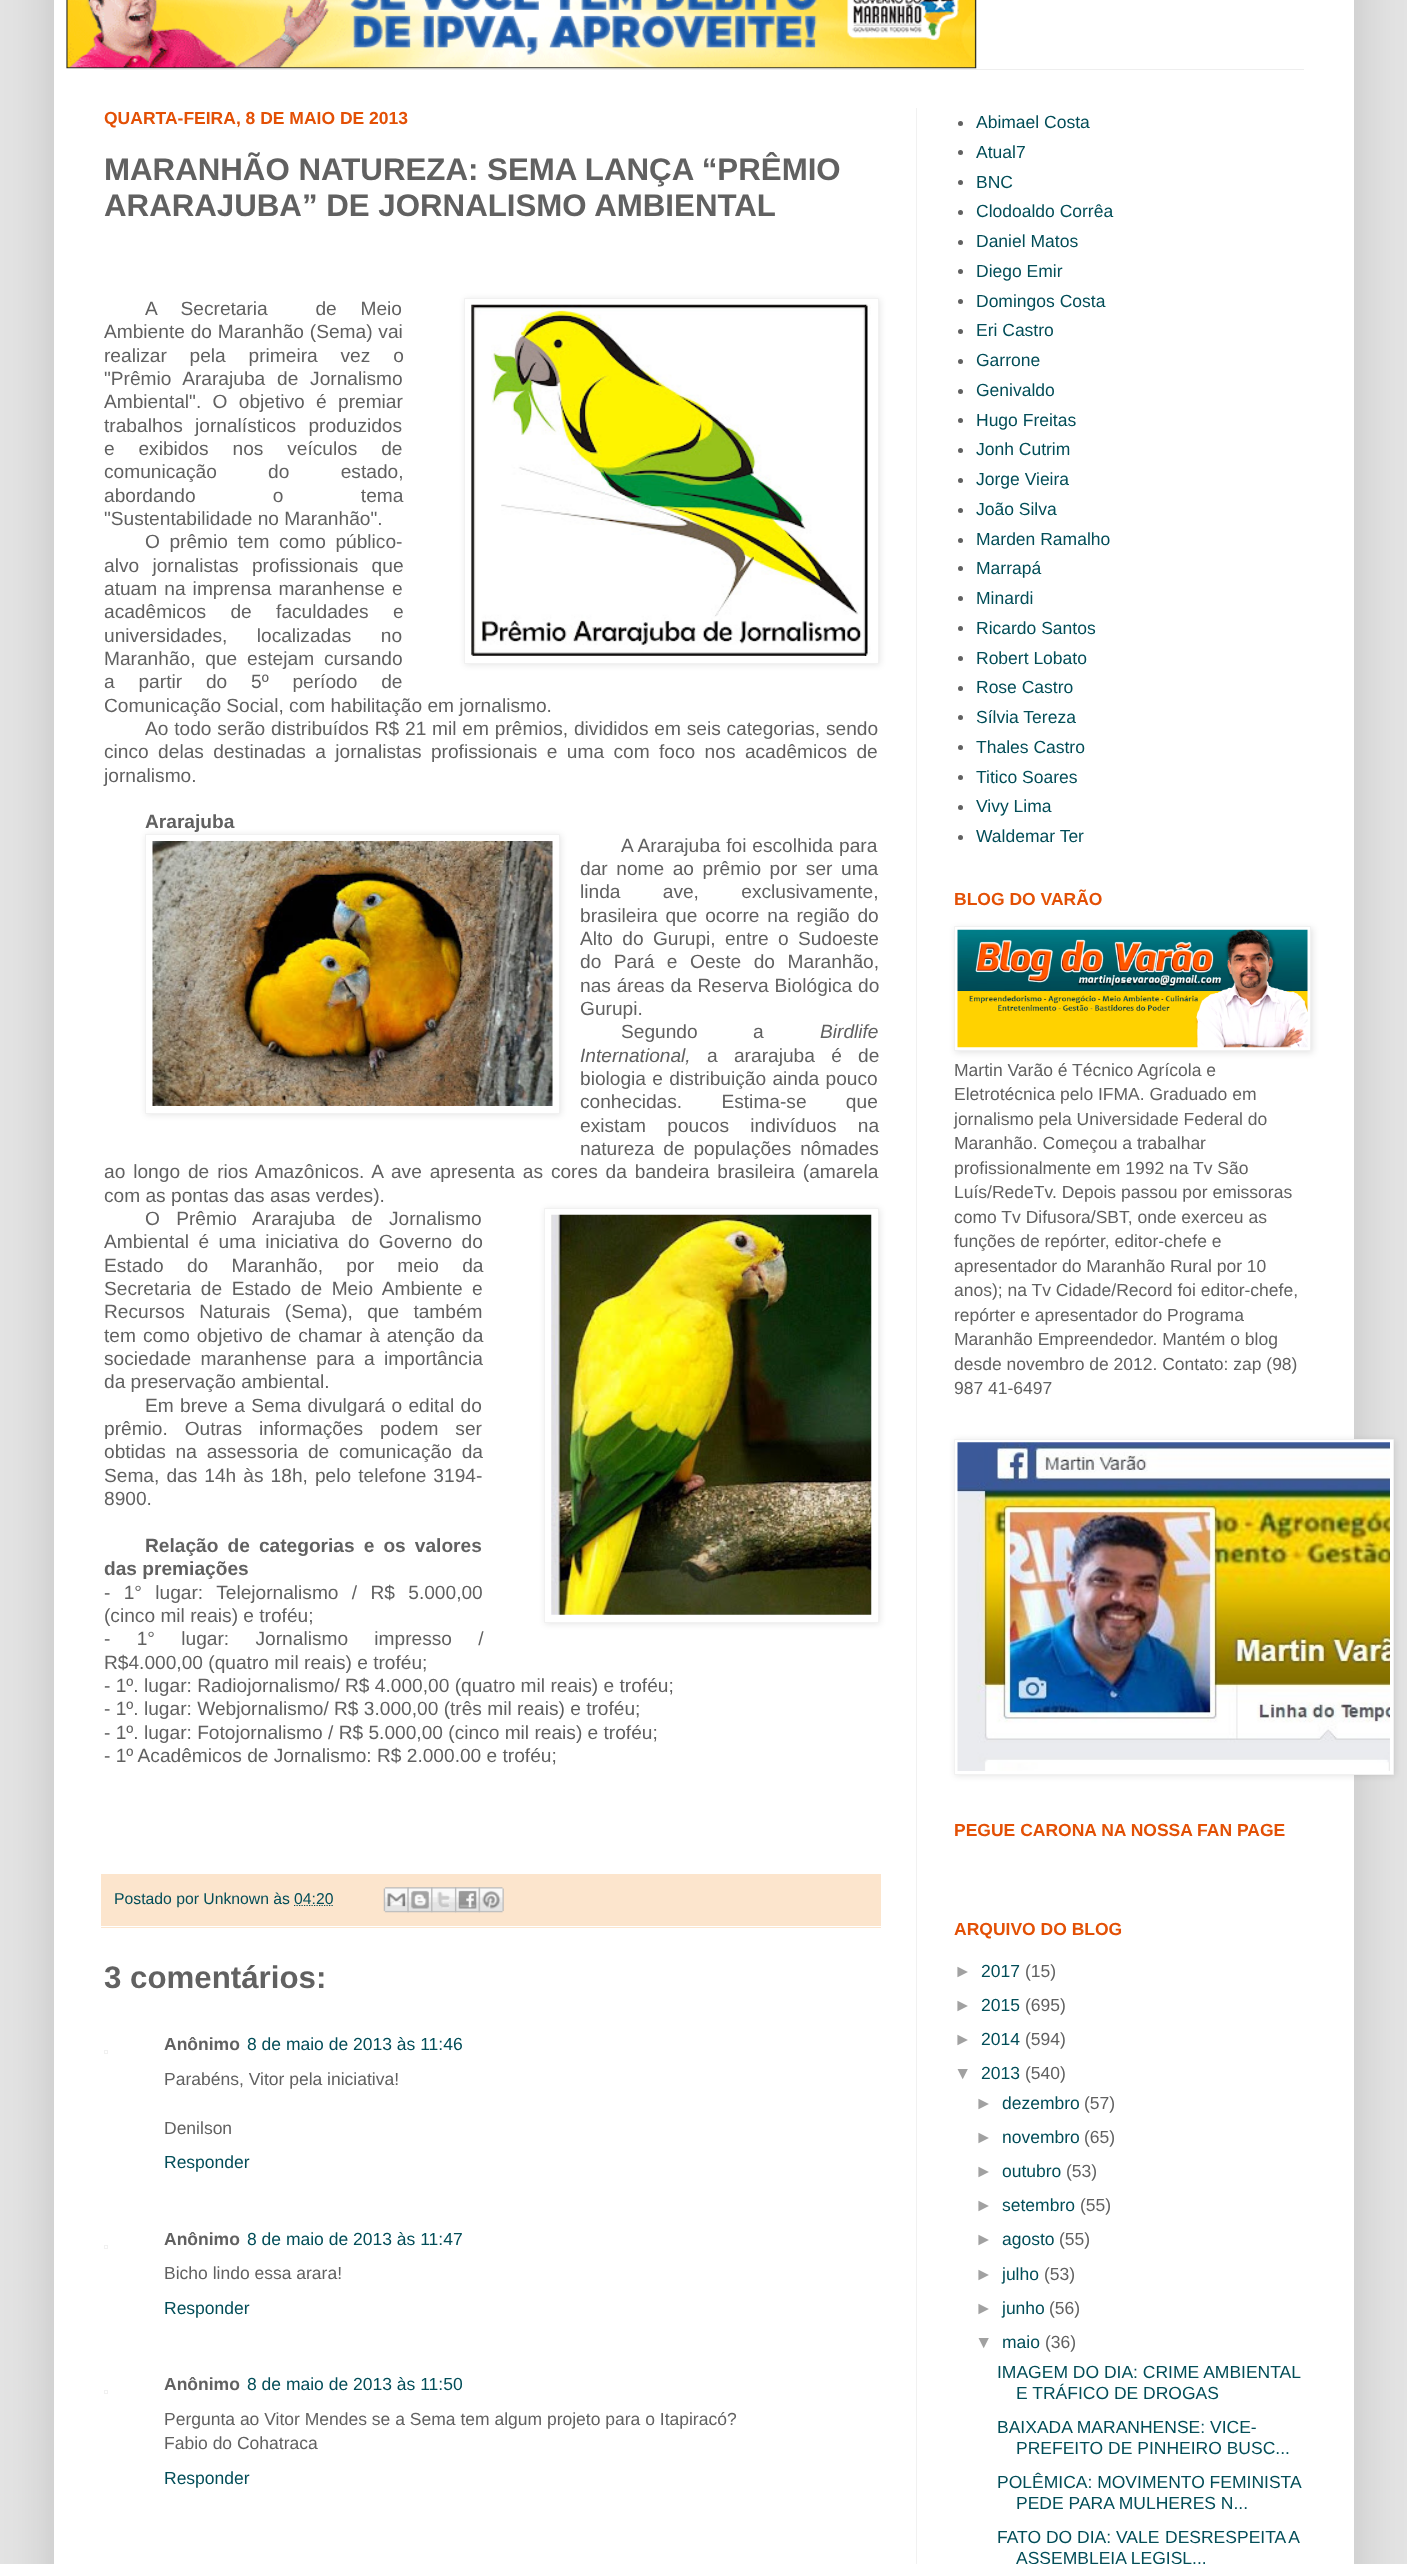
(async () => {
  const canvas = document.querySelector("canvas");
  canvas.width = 1407;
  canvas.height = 2564;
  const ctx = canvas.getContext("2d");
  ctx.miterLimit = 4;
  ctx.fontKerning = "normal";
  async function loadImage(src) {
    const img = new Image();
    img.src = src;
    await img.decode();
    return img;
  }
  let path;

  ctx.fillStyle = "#e3e3e3";
  ctx.fillRect(0, 0, 1407, 2564);
  ctx.fillStyle = "rgba(0, 0, 0, 0.15)";
  ctx.filter = "blur(25px)";
  ctx.beginPath();
  ctx.rect(54, -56, 1300, 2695);
  ctx.fill();
  ctx.filter = "none";
  ctx.fillStyle = "#ffffff";
  ctx.fillRect(54, 0, 1300, 2564);
  ctx.drawImage(await loadImage("img/1.png"), 66, 0, 911, 69);
  ctx.fillStyle = "#eeeeee";
  ctx.fillRect(104, 69, 1200, 1);
  ctx.fillStyle = "#f1f1f1";
  ctx.fillRect(916, 108, 1, 2456);
  ctx.fillStyle = "rgba(0, 0, 0, 0.1)";
  ctx.filter = "blur(3px)";
  ctx.beginPath();
  ctx.rect(465, 299, 415, 366);
  ctx.fill();
  ctx.filter = "none";
  ctx.fillStyle = "#ffffff";
  ctx.beginPath();
  ctx.rect(464.5, 298.5, 414, 365);
  ctx.fill();
  ctx.strokeStyle = "#f1f1f1";
  ctx.stroke();
  ctx.drawImage(await loadImage("img/2.png"), 471, 304, 400, 352);
  ctx.fillStyle = "rgba(0, 0, 0, 0.1)";
  ctx.filter = "blur(3px)";
  ctx.beginPath();
  ctx.rect(146, 835, 415, 280);
  ctx.fill();
  ctx.filter = "none";
  ctx.fillStyle = "#ffffff";
  ctx.beginPath();
  ctx.rect(145.5, 834.5, 414, 279);
  ctx.fill();
  ctx.stroke();
  ctx.drawImage(await loadImage("img/3.png"), 152, 841, 401, 265);
  ctx.fillStyle = "rgba(0, 0, 0, 0.1)";
  ctx.filter = "blur(3px)";
  ctx.beginPath();
  ctx.rect(545, 1209, 335, 415);
  ctx.fill();
  ctx.filter = "none";
  ctx.fillStyle = "#ffffff";
  ctx.beginPath();
  ctx.rect(544.5, 1208.5, 334, 414);
  ctx.fill();
  ctx.stroke();
  ctx.drawImage(await loadImage("img/4.png"), 551, 1214, 321, 401);
  ctx.fillStyle = "#fce5cd";
  ctx.fillRect(101, 1874, 780, 54);
  ctx.fillStyle = "#ffffff";
  ctx.fillRect(101, 1926, 780, 1);
  path = new Path2D("M294 1905.5H333.5");
  ctx.strokeStyle = "#024d58";
  ctx.lineWidth = 1.2;
  ctx.setLineDash([1.25, 1.25]);
  ctx.stroke(path);
  ctx.drawImage(await loadImage("img/5.png"), 383, 1887, 26, 26);
  ctx.drawImage(await loadImage("img/6.png"), 407, 1887, 26, 26);
  ctx.drawImage(await loadImage("img/7.png"), 431, 1887, 26, 26);
  ctx.drawImage(await loadImage("img/8.png"), 455, 1887, 25, 26);
  ctx.drawImage(await loadImage("img/9.png"), 478, 1887, 26, 26);
  ctx.strokeStyle = "#f1f1f1";
  ctx.lineWidth = 1;
  ctx.setLineDash([]);
  ctx.strokeRect(104.5, 2050.5, 3, 3);
  ctx.strokeRect(104.5, 2245.5, 3, 3);
  ctx.strokeRect(104.5, 2390.5, 3, 3);
  ctx.fillStyle = "#616161";
  ctx.beginPath();
  ctx.arc(960.5, 123.5, 2.5, 0, Math.PI * 2);
  ctx.fill();
  ctx.beginPath();
  ctx.arc(960.5, 152.5, 2.5, 0, Math.PI * 2);
  ctx.fill();
  ctx.beginPath();
  ctx.arc(960.5, 182.5, 2.5, 0, Math.PI * 2);
  ctx.fill();
  ctx.beginPath();
  ctx.arc(960.5, 212.5, 2.5, 0, Math.PI * 2);
  ctx.fill();
  ctx.beginPath();
  ctx.arc(960.5, 242.5, 2.5, 0, Math.PI * 2);
  ctx.fill();
  ctx.beginPath();
  ctx.arc(960.5, 271.5, 2.5, 0, Math.PI * 2);
  ctx.fill();
  ctx.beginPath();
  ctx.arc(960.5, 301.5, 2.5, 0, Math.PI * 2);
  ctx.fill();
  ctx.beginPath();
  ctx.arc(960.5, 331.5, 2.5, 0, Math.PI * 2);
  ctx.fill();
  ctx.beginPath();
  ctx.arc(960.5, 361.5, 2.5, 0, Math.PI * 2);
  ctx.fill();
  ctx.beginPath();
  ctx.arc(960.5, 391.5, 2.5, 0, Math.PI * 2);
  ctx.fill();
  ctx.beginPath();
  ctx.arc(960.5, 420.5, 2.5, 0, Math.PI * 2);
  ctx.fill();
  ctx.beginPath();
  ctx.arc(960.5, 450.5, 2.5, 0, Math.PI * 2);
  ctx.fill();
  ctx.beginPath();
  ctx.arc(960.5, 480.5, 2.5, 0, Math.PI * 2);
  ctx.fill();
  ctx.beginPath();
  ctx.arc(960.5, 510.5, 2.5, 0, Math.PI * 2);
  ctx.fill();
  ctx.beginPath();
  ctx.arc(960.5, 540.5, 2.5, 0, Math.PI * 2);
  ctx.fill();
  ctx.beginPath();
  ctx.arc(960.5, 568.5, 2.5, 0, Math.PI * 2);
  ctx.fill();
  ctx.beginPath();
  ctx.arc(960.5, 598.5, 2.5, 0, Math.PI * 2);
  ctx.fill();
  ctx.beginPath();
  ctx.arc(960.5, 628.5, 2.5, 0, Math.PI * 2);
  ctx.fill();
  ctx.beginPath();
  ctx.arc(960.5, 658.5, 2.5, 0, Math.PI * 2);
  ctx.fill();
  ctx.beginPath();
  ctx.arc(960.5, 688.5, 2.5, 0, Math.PI * 2);
  ctx.fill();
  ctx.beginPath();
  ctx.arc(960.5, 717.5, 2.5, 0, Math.PI * 2);
  ctx.fill();
  ctx.beginPath();
  ctx.arc(960.5, 747.5, 2.5, 0, Math.PI * 2);
  ctx.fill();
  ctx.beginPath();
  ctx.arc(960.5, 777.5, 2.5, 0, Math.PI * 2);
  ctx.fill();
  ctx.beginPath();
  ctx.arc(960.5, 807.5, 2.5, 0, Math.PI * 2);
  ctx.fill();
  ctx.beginPath();
  ctx.arc(960.5, 837.5, 2.5, 0, Math.PI * 2);
  ctx.fill();
  ctx.fillStyle = "rgba(0, 0, 0, 0.1)";
  ctx.filter = "blur(3px)";
  ctx.beginPath();
  ctx.rect(955, 928, 358, 125);
  ctx.fill();
  ctx.filter = "none";
  ctx.fillStyle = "#ffffff";
  ctx.beginPath();
  ctx.rect(954.5, 926.5, 356, 124);
  ctx.fill();
  ctx.stroke();
  ctx.drawImage(await loadImage("img/10.png"), 957, 929, 351, 119);
  ctx.fillStyle = "rgba(0, 0, 0, 0.1)";
  ctx.filter = "blur(3px)";
  ctx.beginPath();
  ctx.rect(955, 1440, 440, 336);
  ctx.fill();
  ctx.filter = "none";
  ctx.fillStyle = "#ffffff";
  ctx.beginPath();
  ctx.rect(954.5, 1439.5, 439, 335);
  ctx.fill();
  ctx.stroke();
  ctx.drawImage(await loadImage("img/11.png"), 957, 1442, 433, 329);
  ctx.font = "bold 17.5px Liberation Sans";
  ctx.fillStyle = "#e35005";
  ctx.fillText("QUARTA-FEIRA, 8 DE MAIO DE 2013", 104, 124);
  ctx.font = "bold 31.25px Liberation Sans";
  ctx.fillStyle = "#616161";
  ctx.fillText("MARANHÃO NATUREZA: SEMA LANÇA “PRÊMIO", 104, 180);
  ctx.fillText("ARARAJUBA” DE JORNALISMO AMBIENTAL", 104, 216);
  ctx.wordSpacing = "18.5px";
  ctx.font = "19.15px Liberation Sans";
  ctx.fillText("A Secretaria  de Meio", 145, 315);
  ctx.wordSpacing = "0.5px";
  ctx.fillText("Ambiente do Maranhão (Sema) vai", 104, 338);
  ctx.wordSpacing = "17.5px";
  ctx.fillText("realizar pela primeira vez o", 104, 362);
  ctx.wordSpacing = "6.5px";
  ctx.fillText("\"Prêmio Ararajuba de Jornalismo", 104, 385);
  ctx.wordSpacing = "6px";
  ctx.fillText("Ambiental\". O objetivo é premiar", 104, 408);
  ctx.wordSpacing = "7px";
  ctx.fillText("trabalhos jornalísticos produzidos", 104, 432);
  ctx.wordSpacing = "18.5px";
  ctx.fillText("e exibidos nos veículos de", 104, 455);
  ctx.wordSpacing = "46px";
  ctx.fillText("comunicação do estado,", 104, 478);
  ctx.wordSpacing = "72px";
  ctx.fillText("abordando o tema", 104, 502);
  ctx.wordSpacing = "0px";
  ctx.fillText("\"Sustentabilidade no Maranhão\".", 104, 525);
  ctx.wordSpacing = "4.25px";
  ctx.fillText("O prêmio tem como público-", 145, 548);
  ctx.wordSpacing = "8px";
  ctx.fillText("alvo jornalistas profissionais que", 104, 572);
  ctx.wordSpacing = "1.75px";
  ctx.fillText("atuam na imprensa maranhense e", 104, 595);
  ctx.wordSpacing = "19px";
  ctx.fillText("acadêmicos de faculdades e", 104, 618);
  ctx.wordSpacing = "24px";
  ctx.fillText("universidades, localizadas no", 104, 642);
  ctx.wordSpacing = "4.5px";
  ctx.fillText("Maranhão, que estejam cursando", 104, 665);
  ctx.wordSpacing = "18.5px";
  ctx.fillText("a partir do 5º período de", 104, 688);
  ctx.wordSpacing = "0px";
  ctx.fillText("Comunicação Social, com habilitação em jornalismo.", 104, 712);
  ctx.wordSpacing = "0.5px";
  ctx.fillText("Ao todo serão distribuídos R$ 21 mil em prêmios, divididos em seis categorias, sendo", 145, 735);
  ctx.wordSpacing = "4.1px";
  ctx.fillText("cinco delas destinadas a jornalistas profissionais e uma com foco nos acadêmicos de", 104, 758);
  ctx.wordSpacing = "0px";
  ctx.fillText("jornalismo.", 104, 782);
  ctx.font = "bold 19.15px Liberation Sans";
  ctx.fillText("Ararajuba", 145, 828);
  ctx.wordSpacing = "0.5px";
  ctx.font = "19.15px Liberation Sans";
  ctx.fillText("A Ararajuba foi escolhida para", 621, 852);
  ctx.wordSpacing = "3.25px";
  ctx.fillText("dar nome ao prêmio por ser uma", 580, 875);
  ctx.wordSpacing = "37px";
  ctx.fillText("linda ave, exclusivamente,", 580, 898);
  ctx.wordSpacing = "2.5px";
  ctx.fillText("brasileira que ocorre na região do", 580, 922);
  ctx.wordSpacing = "4px";
  ctx.fillText("Alto do Gurupi, entre o Sudoeste", 580, 945);
  ctx.wordSpacing = "7.25px";
  ctx.fillText("do Pará e Oeste do Maranhão,", 580, 968);
  ctx.wordSpacing = "0.5px";
  ctx.fillText("nas áreas da Reserva Biológica do", 580, 992);
  ctx.wordSpacing = "0px";
  ctx.fillText("Gurupi.", 580, 1015);
  ctx.wordSpacing = "50px";
  ctx.fillText("Segundo a", 621, 1038);
  ctx.wordSpacing = "0px";
  ctx.font = "italic 19.15px Liberation Sans";
  ctx.fillText("Birdlife", 820, 1038);
  ctx.fillText("International,", 580, 1062);
  ctx.wordSpacing = "11px";
  ctx.font = "19.15px Liberation Sans";
  ctx.fillText("a ararajuba é de", 707, 1062);
  ctx.wordSpacing = "1px";
  ctx.fillText("biologia e distribuição ainda pouco", 580, 1085);
  ctx.wordSpacing = "34px";
  ctx.fillText("conhecidas. Estima-se que", 580, 1108);
  ctx.wordSpacing = "16px";
  ctx.fillText("existam poucos indivíduos na", 580, 1132);
  ctx.wordSpacing = "3.5px";
  ctx.fillText("natureza de populações nômades", 580, 1155);
  ctx.wordSpacing = "2.6px";
  ctx.fillText("ao longo de rios Amazônicos. A ave apresenta as cores da bandeira brasileira (amarela", 104, 1178);
  ctx.wordSpacing = "0px";
  ctx.fillText("com as pontas das asas verdes).", 104, 1202);
  ctx.wordSpacing = "11px";
  ctx.fillText("O Prêmio Ararajuba de Jornalismo", 145, 1225);
  ctx.wordSpacing = "4.1px";
  ctx.fillText("Ambiental é uma iniciativa do Governo do", 104, 1248);
  ctx.wordSpacing = "18px";
  ctx.fillText("Estado do Maranhão, por meio da", 104, 1272);
  ctx.wordSpacing = "4.25px";
  ctx.fillText("Secretaria de Estado de Meio Ambiente e", 104, 1295);
  ctx.wordSpacing = "9px";
  ctx.fillText("Recursos Naturais (Sema), que também", 104, 1318);
  ctx.wordSpacing = "1.75px";
  ctx.fillText("tem como objetivo de chamar à atenção da", 104, 1342);
  ctx.wordSpacing = "4px";
  ctx.fillText("sociedade maranhense para a importância", 104, 1365);
  ctx.wordSpacing = "0px";
  ctx.fillText("da preservação ambiental.", 104, 1388);
  ctx.wordSpacing = "1px";
  ctx.fillText("Em breve a Sema divulgará o edital do", 145, 1412);
  ctx.wordSpacing = "11.5px";
  ctx.fillText("prêmio. Outras informações podem ser", 104, 1435);
  ctx.wordSpacing = "4.5px";
  ctx.fillText("obtidas na assessoria de comunicação da", 104, 1458);
  ctx.wordSpacing = "1.75px";
  ctx.fillText("Sema, das 14h às 18h, pelo telefone 3194-", 104, 1482);
  ctx.wordSpacing = "0px";
  ctx.fillText("8900.", 104, 1505);
  ctx.wordSpacing = "3.75px";
  ctx.font = "bold 19.15px Liberation Sans";
  ctx.fillText("Relação de categorias e os valores", 145, 1552);
  ctx.wordSpacing = "0px";
  ctx.fillText("das premiações", 104, 1575);
  ctx.wordSpacing = "8px";
  ctx.font = "19.15px Liberation Sans";
  ctx.fillText("- 1° lugar: Telejornalismo / R$ 5.000,00", 104, 1599);
  ctx.wordSpacing = "0px";
  ctx.fillText("(cinco mil reais) e troféu;", 104, 1622);
  ctx.wordSpacing = "21px";
  ctx.fillText("- 1° lugar: Jornalismo impresso /", 104, 1645);
  ctx.wordSpacing = "0px";
  for (const [text, x, y] of [
    ["R$4.000,00 (quatro mil reais) e troféu;", 104, 1669],
    ["- 1º. lugar: Radiojornalismo/ R$ 4.000,00 (quatro mil reais) e troféu;", 104, 1692],
    ["- 1º. lugar: Webjornalismo/ R$ 3.000,00 (três mil reais) e troféu;", 104, 1715],
    ["- 1º. lugar: Fotojornalismo / R$ 5.000,00 (cinco mil reais) e troféu;", 104, 1739],
    ["- 1º Acadêmicos de Jornalismo: R$ 2.000.00 e troféu;", 104, 1762],
  ]) {
    ctx.fillText(text, x, y);
  }
  ctx.font = "15.75px Liberation Sans";
  ctx.fillStyle = "#024d58";
  ctx.fillText("Postado por Unknown às", 114, 1904);
  ctx.fillText("04:20", 294, 1904);
  ctx.font = "bold 31.25px Liberation Sans";
  ctx.fillStyle = "#616161";
  ctx.fillText("3 comentários:", 104, 1988);
  ctx.font = "bold 17.5px Liberation Sans";
  ctx.fillText("Anônimo", 164, 2050);
  ctx.font = "17.5px Liberation Sans";
  ctx.fillStyle = "#024d58";
  ctx.fillText("8 de maio de 2013 às 11:46", 247, 2050);
  ctx.fillStyle = "#616161";
  ctx.fillText("Parabéns, Vitor pela iniciativa!", 164, 2085);
  ctx.fillText("Denilson", 164, 2134);
  ctx.fillStyle = "#024d58";
  ctx.fillText("Responder", 164, 2168);
  ctx.font = "bold 17.5px Liberation Sans";
  ctx.fillStyle = "#616161";
  ctx.fillText("Anônimo", 164, 2245);
  ctx.font = "17.5px Liberation Sans";
  ctx.fillStyle = "#024d58";
  ctx.fillText("8 de maio de 2013 às 11:47", 247, 2245);
  ctx.fillStyle = "#616161";
  ctx.fillText("Bicho lindo essa arara!", 164, 2279);
  ctx.fillStyle = "#024d58";
  ctx.fillText("Responder", 164, 2314);
  ctx.font = "bold 17.5px Liberation Sans";
  ctx.fillStyle = "#616161";
  ctx.fillText("Anônimo", 164, 2390);
  ctx.font = "17.5px Liberation Sans";
  ctx.fillStyle = "#024d58";
  ctx.fillText("8 de maio de 2013 às 11:50", 247, 2390);
  ctx.fillStyle = "#616161";
  ctx.fillText("Pergunta ao Vitor Mendes se a Sema tem algum projeto para o Itapiracó?", 164, 2425);
  ctx.fillText("Fabio do Cohatraca", 164, 2449);
  ctx.fillStyle = "#024d58";
  for (const [text, x, y] of [
    ["Responder", 164, 2484],
    ["Abimael Costa", 976, 128],
    ["Atual7", 976, 158],
    ["BNC", 976, 188],
    ["Clodoaldo Corrêa", 976, 217],
    ["Daniel Matos", 976, 247],
    ["Diego Emir", 976, 277],
    ["Domingos Costa", 976, 307],
    ["Eri Castro", 976, 336],
    ["Garrone", 976, 366],
    ["Genivaldo", 976, 396],
    ["Hugo Freitas", 976, 426],
    ["Jonh Cutrim", 976, 455],
    ["Jorge Vieira", 976, 485],
    ["João Silva", 976, 515],
    ["Marden Ramalho", 976, 545],
    ["Marrapá", 976, 574],
    ["Minardi", 976, 604],
    ["Ricardo Santos", 976, 634],
    ["Robert Lobato", 976, 664],
    ["Rose Castro", 976, 693],
    ["Sílvia Tereza", 976, 723],
    ["Thales Castro", 976, 753],
    ["Titico Soares", 976, 783],
    ["Vivy Lima", 976, 812],
    ["Waldemar Ter", 976, 842],
  ]) {
    ctx.fillText(text, x, y);
  }
  ctx.font = "bold 17.5px Liberation Sans";
  ctx.fillStyle = "#e35005";
  ctx.fillText("BLOG DO VARÃO", 954, 905);
  ctx.font = "17.5px Liberation Sans";
  ctx.fillStyle = "#616161";
  for (const [text, x, y] of [
    ["Martin Varão é Técnico Agrícola e", 954, 1076],
    ["Eletrotécnica pelo IFMA. Graduado em", 954, 1100],
    ["jornalismo pela Universidade Federal do", 954, 1125],
    ["Maranhão. Começou a trabalhar", 954, 1149],
    ["profissionalmente em 1992 na Tv São", 954, 1174],
    ["Luís/RedeTv. Depois passou por emissoras", 954, 1198],
    ["como Tv Difusora/SBT, onde exerceu as", 954, 1223],
    ["funções de repórter, editor-chefe e", 954, 1247],
    ["apresentador do Maranhão Rural por 10", 954, 1272],
    ["anos); na Tv Cidade/Record foi editor-chefe,", 954, 1296],
    ["repórter e apresentador do Programa", 954, 1321],
    ["Maranhão Empreendedor. Mantém o blog", 954, 1345],
    ["desde novembro de 2012. Contato: zap (98)", 954, 1370],
    ["987 41-6497", 954, 1394],
  ]) {
    ctx.fillText(text, x, y);
  }
  ctx.font = "bold 17.5px Liberation Sans";
  ctx.fillStyle = "#e35005";
  ctx.fillText("PEGUE CARONA NA NOSSA FAN PAGE", 954, 1836);
  ctx.fillText("ARQUIVO DO BLOG", 954, 1935);
  ctx.font = "17.5px Liberation Sans";
  ctx.fillStyle = "#a1a1a1";
  ctx.fillText("►", 954, 1977);
  ctx.fillStyle = "#024d58";
  ctx.fillText("2017", 981, 1977);
  ctx.fillStyle = "#616161";
  ctx.fillText("(15)", 1025, 1977);
  ctx.fillStyle = "#a1a1a1";
  ctx.fillText("►", 954, 2011);
  ctx.fillStyle = "#024d58";
  ctx.fillText("2015", 981, 2011);
  ctx.fillStyle = "#616161";
  ctx.fillText("(695)", 1025, 2011);
  ctx.fillStyle = "#a1a1a1";
  ctx.fillText("►", 954, 2045);
  ctx.fillStyle = "#024d58";
  ctx.fillText("2014", 981, 2045);
  ctx.fillStyle = "#616161";
  ctx.fillText("(594)", 1025, 2045);
  ctx.fillStyle = "#a1a1a1";
  ctx.fillText("▼", 954, 2079);
  ctx.fillStyle = "#024d58";
  ctx.fillText("2013", 981, 2079);
  ctx.fillStyle = "#616161";
  ctx.fillText("(540)", 1025, 2079);
  ctx.fillStyle = "#a1a1a1";
  ctx.fillText("►", 975, 2109);
  ctx.fillStyle = "#024d58";
  ctx.fillText("dezembro", 1002, 2109);
  ctx.fillStyle = "#616161";
  ctx.fillText("(57)", 1084, 2109);
  ctx.fillStyle = "#a1a1a1";
  ctx.fillText("►", 975, 2143);
  ctx.fillStyle = "#024d58";
  ctx.fillText("novembro", 1002, 2143);
  ctx.fillStyle = "#616161";
  ctx.fillText("(65)", 1084, 2143);
  ctx.fillStyle = "#a1a1a1";
  ctx.fillText("►", 975, 2177);
  ctx.fillStyle = "#024d58";
  ctx.fillText("outubro", 1002, 2177);
  ctx.fillStyle = "#616161";
  ctx.fillText("(53)", 1066, 2177);
  ctx.fillStyle = "#a1a1a1";
  ctx.fillText("►", 975, 2211);
  ctx.fillStyle = "#024d58";
  ctx.fillText("setembro", 1002, 2211);
  ctx.fillStyle = "#616161";
  ctx.fillText("(55)", 1080, 2211);
  ctx.fillStyle = "#a1a1a1";
  ctx.fillText("►", 975, 2245);
  ctx.fillStyle = "#024d58";
  ctx.fillText("agosto", 1002, 2245);
  ctx.fillStyle = "#616161";
  ctx.fillText("(55)", 1059, 2245);
  ctx.fillStyle = "#a1a1a1";
  ctx.fillText("►", 975, 2280);
  ctx.fillStyle = "#024d58";
  ctx.fillText("julho", 1002, 2280);
  ctx.fillStyle = "#616161";
  ctx.fillText("(53)", 1044, 2280);
  ctx.fillStyle = "#a1a1a1";
  ctx.fillText("►", 975, 2314);
  ctx.fillStyle = "#024d58";
  ctx.fillText("junho", 1002, 2314);
  ctx.fillStyle = "#616161";
  ctx.fillText("(56)", 1049, 2314);
  ctx.fillStyle = "#a1a1a1";
  ctx.fillText("▼", 975, 2348);
  ctx.fillStyle = "#024d58";
  ctx.fillText("maio", 1002, 2348);
  ctx.fillStyle = "#616161";
  ctx.fillText("(36)", 1045, 2348);
  ctx.fillStyle = "#024d58";
  for (const [text, x, y] of [
    ["IMAGEM DO DIA: CRIME AMBIENTAL", 997, 2378],
    ["E TRÁFICO DE DROGAS", 1016, 2399],
    ["BAIXADA MARANHENSE: VICE-", 997, 2433],
    ["PREFEITO DE PINHEIRO BUSC...", 1016, 2454],
    ["POLÊMICA: MOVIMENTO FEMINISTA", 997, 2488],
    ["PEDE PARA MULHERES N...", 1016, 2509],
    ["FATO DO DIA: VALE", 997, 2543],
  ]) {
    ctx.fillText(text, x, y);
  }
  ctx.wordSpacing = "-1px";
  ctx.fillText("DESRESPEITA A", 1165, 2543);
  ctx.wordSpacing = "0px";
  ctx.fillText("ASSEMBLEIA LEGISL...", 1016, 2564);
})();
